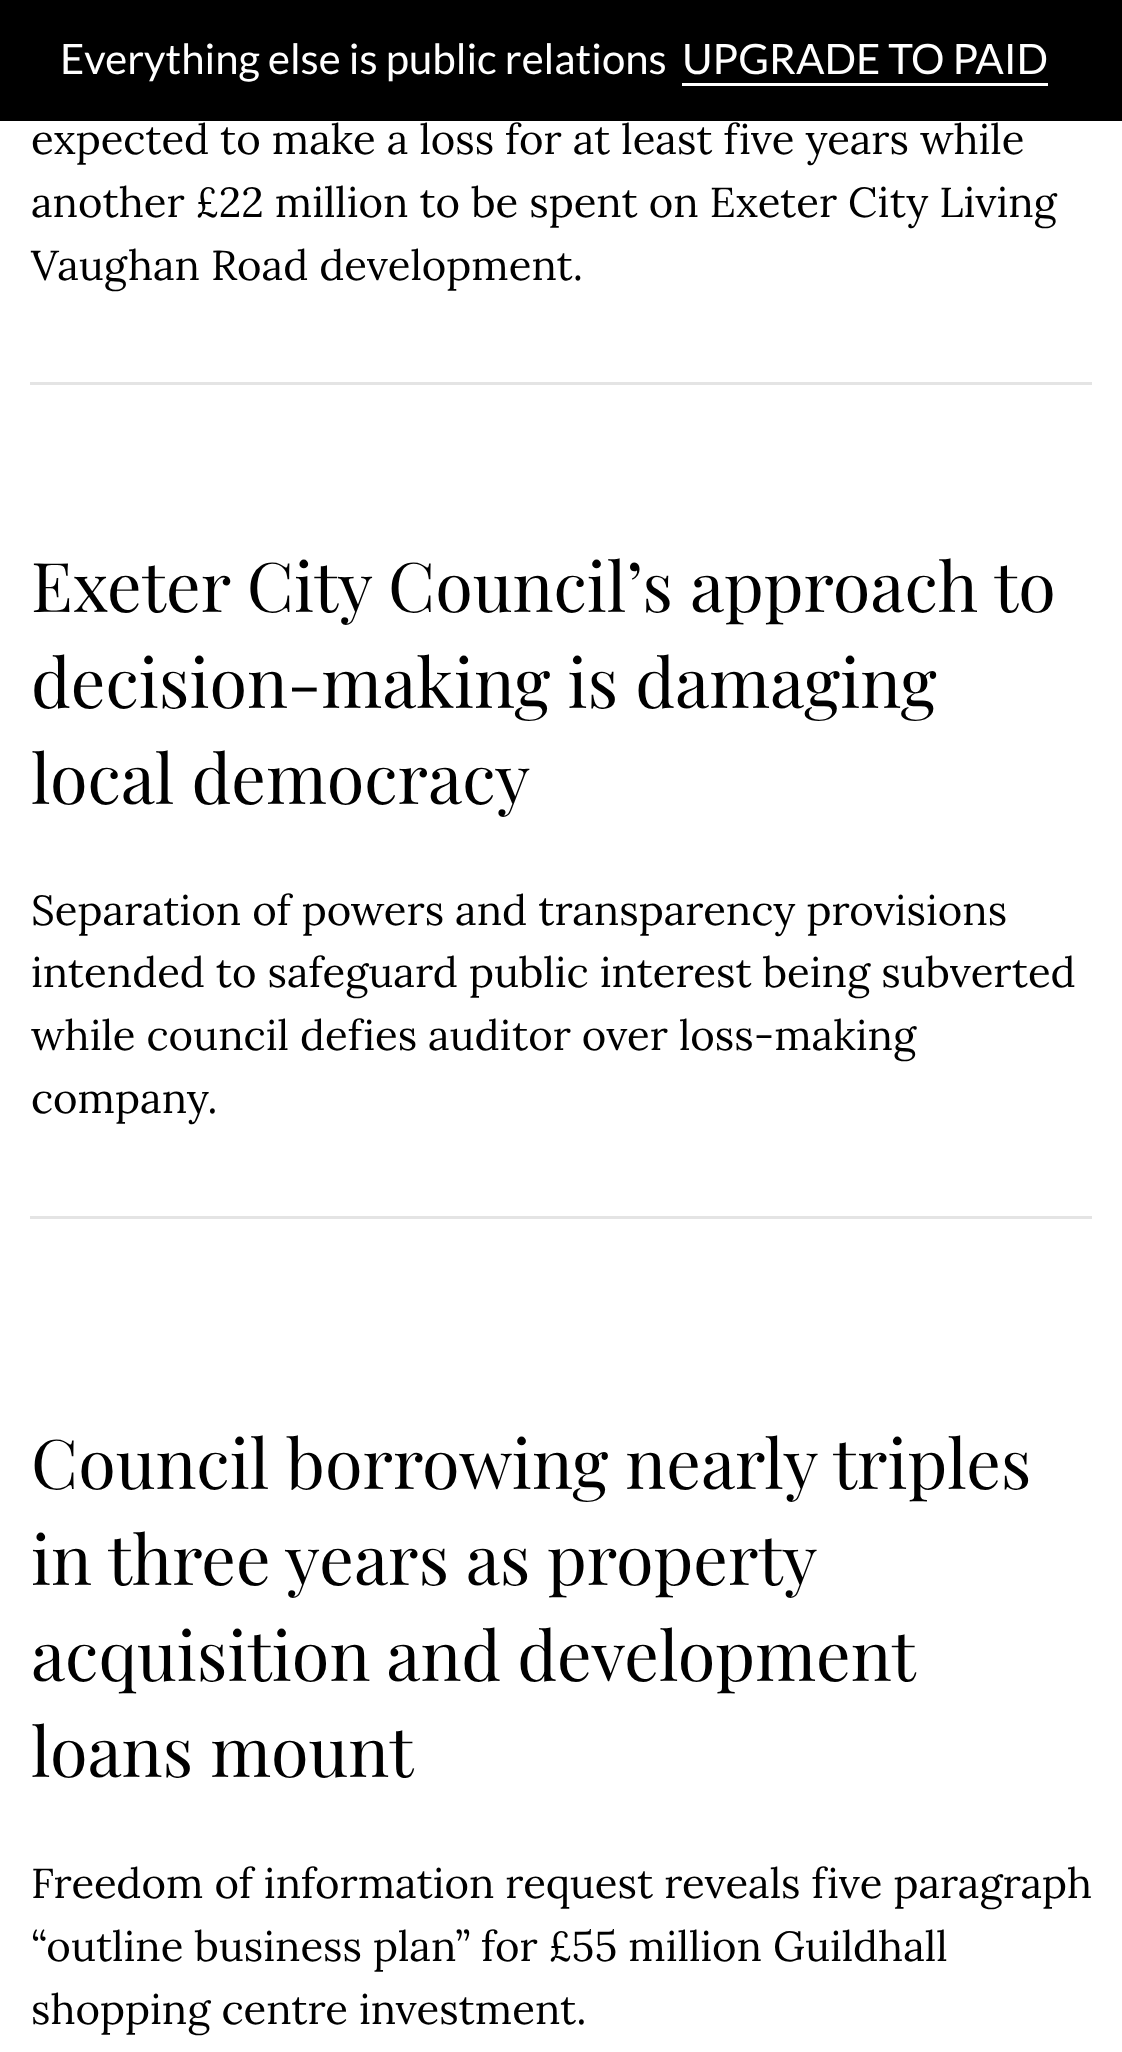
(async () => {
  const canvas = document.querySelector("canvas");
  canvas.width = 1122;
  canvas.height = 2052;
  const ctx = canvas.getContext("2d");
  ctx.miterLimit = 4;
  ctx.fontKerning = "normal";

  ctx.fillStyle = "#ffffff";
  ctx.fillRect(0, 0, 1122, 2052);
  for (const [x, y, w, h, color] of [
    [0, 0, 1122, 121, "#000000"],
    [682, 83, 366, 3, "#ffffff"],
    [30, 382, 1062, 3, "#e4e4e4"],
    [30, 1216, 1062, 3, "#e4e4e4"],
  ]) {
    ctx.fillStyle = color;
    ctx.fillRect(x, y, w, h);
  }
  ctx.font = "41.9px Lato";
  ctx.fillStyle = "#ffffff";
  ctx.fillText("Everything else is public relations", 60, 74);
  ctx.fillText("UPGRADE TO PAID", 682, 74);
  ctx.font = "41.9px Lora";
  ctx.fillStyle = "#000000";
  for (const [text, x, y] of [
    ["expected to make a loss for at least five years while", 31, 154],
    ["another £22 million to be spent on Exeter City Living", 31, 217],
    ["Vaughan Road development.", 31, 280],
  ]) {
    ctx.fillText(text, x, y);
  }
  ctx.font = "68.5px Playfair Display";
  for (const [text, x, y] of [
    ["Exeter City Council’s approach to", 31, 612],
    ["decision-making is damaging", 31, 708],
    ["local democracy", 31, 804],
  ]) {
    ctx.fillText(text, x, y);
  }
  ctx.font = "41.9px Lora";
  for (const [text, x, y] of [
    ["Separation of powers and transparency provisions", 31, 925],
    ["intended to safeguard public interest being subverted", 31, 987],
    ["while council defies auditor over loss-making", 31, 1050],
    ["company.", 31, 1113],
  ]) {
    ctx.fillText(text, x, y);
  }
  ctx.font = "68.5px Playfair Display";
  ctx.fillText("Council borrowing nearly triples", 31, 1489);
  ctx.wordSpacing = "-0.5px";
  ctx.fillText("in three years as property", 31, 1585);
  ctx.wordSpacing = "-1px";
  ctx.fillText("acquisition and development", 31, 1681);
  ctx.wordSpacing = "0px";
  ctx.fillText("loans mount", 31, 1777);
  ctx.font = "41.9px Lora";
  for (const [text, x, y] of [
    ["Freedom of information request reveals five paragraph", 31, 1898],
    ["“outline business plan” for £55 million Guildhall", 31, 1961],
    ["shopping centre investment.", 31, 2024],
  ]) {
    ctx.fillText(text, x, y);
  }
})();
